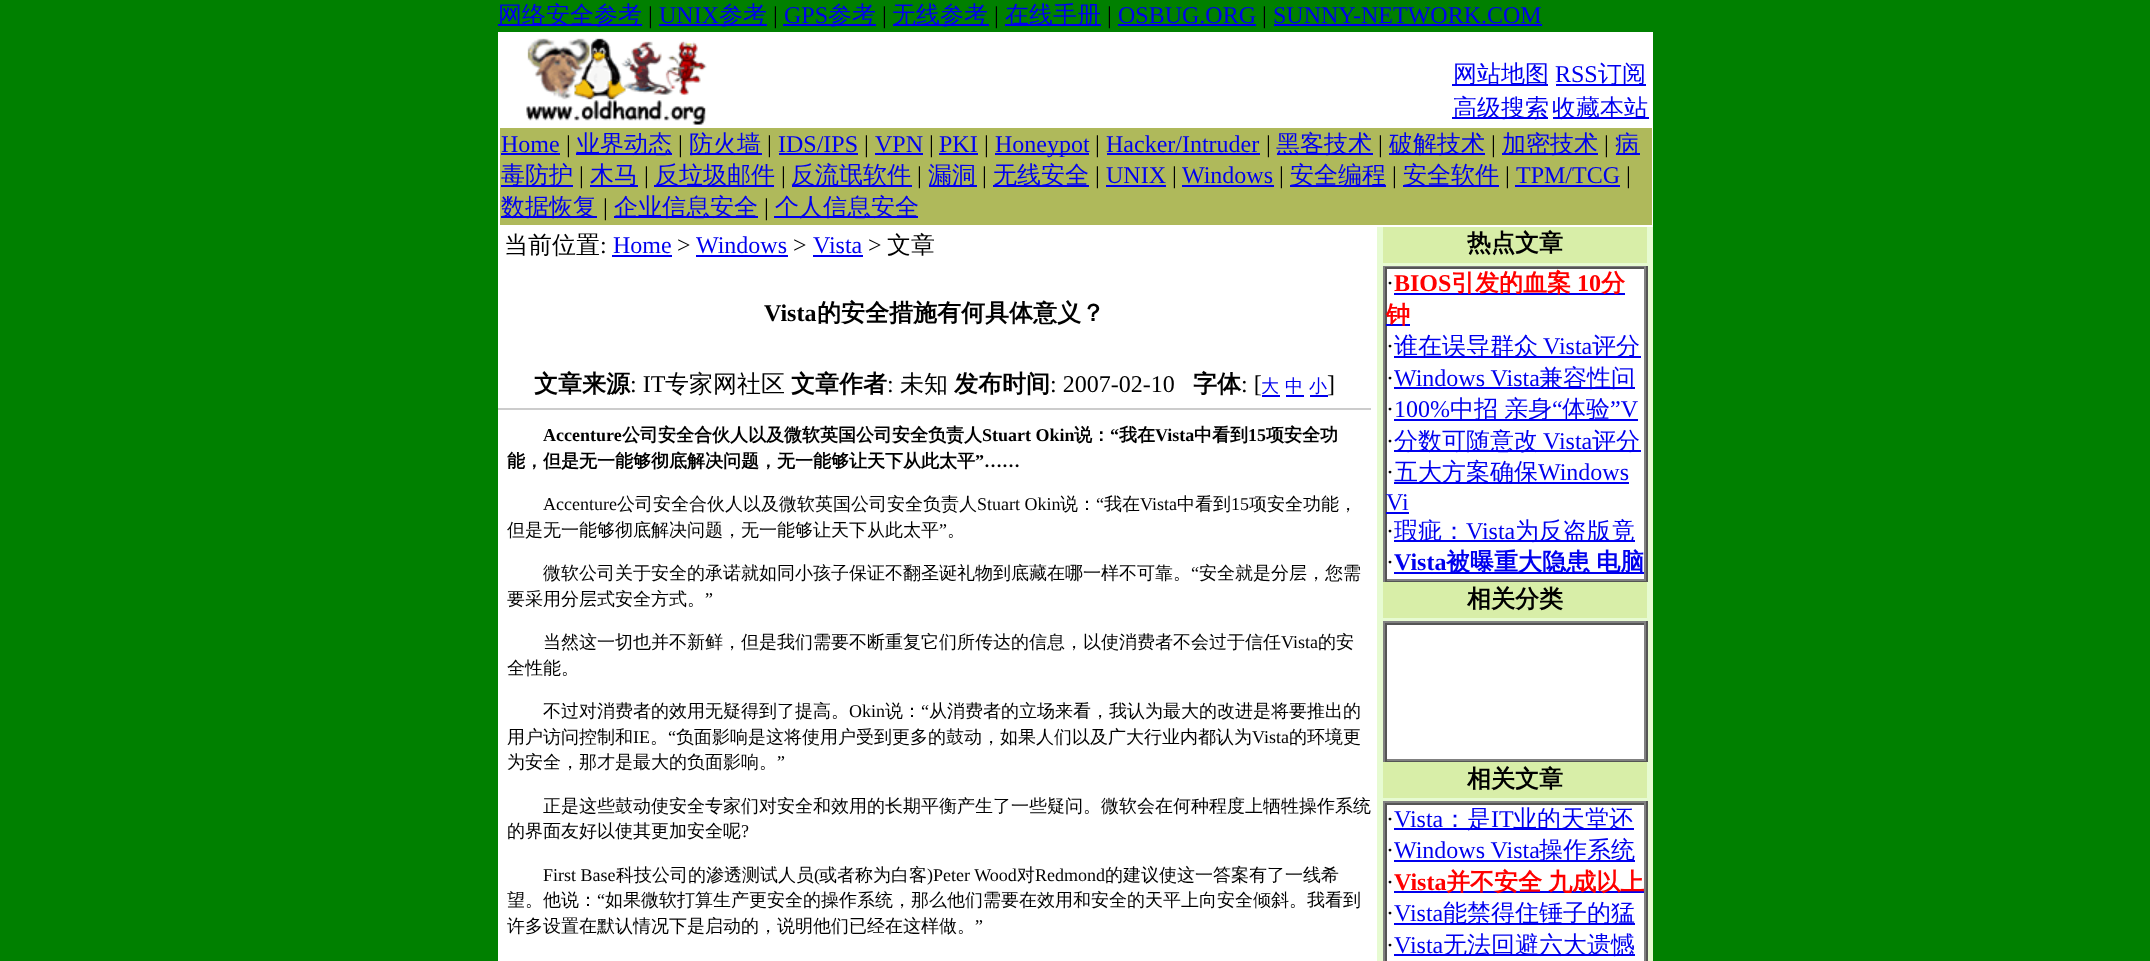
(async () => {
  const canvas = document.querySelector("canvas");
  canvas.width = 2150;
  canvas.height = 961;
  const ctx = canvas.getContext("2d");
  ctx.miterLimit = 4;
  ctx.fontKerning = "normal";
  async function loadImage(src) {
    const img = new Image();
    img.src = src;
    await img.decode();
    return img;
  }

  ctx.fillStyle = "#008000";
  ctx.fillRect(0, 0, 2150, 961);
  for (const [x, y, w, h, color] of [
    [498, 24, 144, 2, "#0000ee"],
    [659, 24, 108, 2, "#0000ee"],
    [783, 24, 93, 2, "#0000ee"],
    [893, 24, 96, 2, "#0000ee"],
    [1005, 24, 96, 2, "#0000ee"],
    [1118, 24, 138, 2, "#0000ee"],
    [1274, 24, 268, 2, "#0000ee"],
    [498, 32, 1155, 195, "#ffffff"],
  ]) {
    ctx.fillStyle = color;
    ctx.fillRect(x, y, w, h);
  }
  ctx.drawImage(await loadImage("img/1.png"), 526, 38, 181, 87);
  for (const [x, y, w, h, color] of [
    [1452, 84, 96, 2, "#0000ee"],
    [1556, 84, 90, 2, "#0000ee"],
    [1452, 117, 96, 2, "#0000ee"],
    [1553, 117, 96, 2, "#0000ee"],
    [500, 128, 1152, 97, "#afb95b"],
    [501, 153, 59, 2, "#0000ee"],
    [576, 153, 96, 2, "#0000ee"],
    [690, 153, 72, 2, "#0000ee"],
    [779, 153, 79, 2, "#0000ee"],
    [875, 153, 48, 2, "#0000ee"],
    [939, 153, 39, 2, "#0000ee"],
    [995, 153, 94, 2, "#0000ee"],
    [1107, 153, 153, 2, "#0000ee"],
    [1277, 153, 96, 2, "#0000ee"],
    [1389, 153, 96, 2, "#0000ee"],
    [1502, 153, 96, 2, "#0000ee"],
    [1616, 153, 24, 2, "#0000ee"],
    [501, 185, 72, 2, "#0000ee"],
    [590, 185, 48, 2, "#0000ee"],
    [654, 185, 120, 2, "#0000ee"],
    [792, 185, 120, 2, "#0000ee"],
    [929, 185, 48, 2, "#0000ee"],
    [993, 185, 96, 2, "#0000ee"],
    [1106, 185, 60, 2, "#0000ee"],
    [1182, 185, 92, 2, "#0000ee"],
    [1290, 185, 96, 2, "#0000ee"],
    [1403, 185, 96, 2, "#0000ee"],
    [1515, 185, 105, 2, "#0000ee"],
    [501, 216, 96, 2, "#0000ee"],
    [614, 216, 144, 2, "#0000ee"],
    [774, 216, 144, 2, "#0000ee"],
    [498, 227, 879, 734, "#ffffff"],
    [612, 255, 60, 2, "#0000ee"],
    [696, 255, 92, 2, "#0000ee"],
    [813, 255, 50, 2, "#0000ee"],
    [498, 408, 873, 2, "#cccccc"],
    [1262, 395, 18, 2, "#0000ee"],
    [1286, 395, 18, 2, "#0000ee"],
    [1310, 395, 18, 2, "#0000ee"],
    [1377, 227, 276, 734, "#e7fbd2"],
    [1383, 227, 264, 36, "#d8eea8"],
    [1383, 266, 264, 1, "#808080"],
    [1646, 266, 2, 316, "#555555"],
    [1383, 581, 264, 1, "#555555"],
    [1383, 266, 2, 316, "#808080"],
    [1387, 269, 257, 310, "#ffffff"],
    [1385, 267, 261, 2, "#555555"],
    [1644, 267, 2, 314, "#808080"],
    [1385, 579, 261, 2, "#808080"],
    [1385, 267, 2, 314, "#555555"],
    [1394, 293, 231, 2, "#0000ee"],
    [1386, 324, 24, 2, "#0000ee"],
    [1394, 356, 247, 2, "#0000ee"],
    [1394, 387, 241, 2, "#0000ee"],
    [1394, 419, 244, 2, "#0000ee"],
    [1394, 450, 247, 2, "#0000ee"],
    [1394, 482, 235, 2, "#0000ee"],
    [1386, 512, 23, 2, "#0000ee"],
    [1394, 540, 241, 2, "#0000ee"],
    [1394, 572, 250, 2, "#0000ee"],
    [1383, 582, 264, 36, "#d8eea8"],
    [1383, 621, 264, 2, "#808080"],
    [1646, 621, 2, 141, "#555555"],
    [1383, 761, 264, 1, "#555555"],
    [1383, 621, 2, 141, "#808080"],
    [1387, 625, 257, 134, "#ffffff"],
    [1385, 623, 261, 2, "#555555"],
    [1644, 623, 2, 138, "#808080"],
    [1385, 759, 261, 2, "#808080"],
    [1385, 623, 2, 138, "#555555"],
    [1383, 762, 264, 36, "#d8eea8"],
    [1383, 801, 264, 2, "#808080"],
    [1646, 801, 2, 160, "#555555"],
    [1383, 801, 2, 160, "#808080"],
    [1387, 805, 257, 156, "#ffffff"],
    [1385, 803, 261, 2, "#555555"],
    [1644, 803, 2, 158, "#808080"],
    [1385, 803, 2, 158, "#555555"],
    [1394, 828, 240, 2, "#0000ee"],
    [1394, 860, 241, 2, "#0000ee"],
    [1394, 891, 250, 2, "#0000ee"],
    [1394, 923, 241, 2, "#0000ee"],
    [1394, 954, 241, 2, "#0000ee"],
  ]) {
    ctx.fillStyle = color;
    ctx.fillRect(x, y, w, h);
  }
  ctx.font = "500 24px WenQuanYi Zen Hei";
  ctx.fillText("网络安全参考", 498, 23);
  ctx.font = "24px Liberation Serif";
  ctx.fillStyle = "#000000";
  ctx.fillText("|", 648, 23);
  ctx.fillStyle = "#0000ee";
  ctx.fillText("UNIX", 659, 23);
  ctx.font = "500 24px WenQuanYi Zen Hei";
  ctx.fillText("参考", 719, 23);
  ctx.font = "24px Liberation Serif";
  ctx.fillStyle = "#000000";
  ctx.fillText("|", 773, 23);
  ctx.fillStyle = "#0000ee";
  ctx.fillText("GPS", 784, 23);
  ctx.font = "500 24px WenQuanYi Zen Hei";
  ctx.fillText("参考", 828, 23);
  ctx.font = "24px Liberation Serif";
  ctx.fillStyle = "#000000";
  ctx.fillText("|", 882, 23);
  ctx.font = "500 24px WenQuanYi Zen Hei";
  ctx.fillStyle = "#0000ee";
  ctx.fillText("无线参考", 892, 23);
  ctx.font = "24px Liberation Serif";
  ctx.fillStyle = "#000000";
  ctx.fillText("|", 994, 23);
  ctx.font = "500 24px WenQuanYi Zen Hei";
  ctx.fillStyle = "#0000ee";
  ctx.fillText("在线手册", 1005, 23);
  ctx.font = "24px Liberation Serif";
  ctx.fillStyle = "#000000";
  ctx.fillText("|", 1107, 23);
  ctx.fillStyle = "#0000ee";
  ctx.fillText("OSBUG.ORG", 1118, 23);
  ctx.fillStyle = "#000000";
  ctx.fillText("|", 1262, 23);
  ctx.fillStyle = "#0000ee";
  ctx.fillText("SUNNY-NETWORK.COM", 1273, 23);
  ctx.font = "500 24px WenQuanYi Zen Hei";
  ctx.fillText("网站地图", 1453, 82);
  ctx.font = "24px Liberation Serif";
  ctx.fillText("RSS", 1555, 82);
  ctx.font = "500 24px WenQuanYi Zen Hei";
  for (const [text, x, y] of [
    ["订阅", 1598, 82],
    ["高级搜索", 1453, 116],
    ["收藏本站", 1552, 116],
  ]) {
    ctx.fillText(text, x, y);
  }
  ctx.font = "24px Liberation Serif";
  ctx.fillText("Home", 501, 152);
  ctx.fillStyle = "#000000";
  ctx.fillText("|", 566, 152);
  ctx.font = "500 24px WenQuanYi Zen Hei";
  ctx.fillStyle = "#0000ee";
  ctx.fillText("业界动态", 576, 152);
  ctx.font = "24px Liberation Serif";
  ctx.fillStyle = "#000000";
  ctx.fillText("|", 678, 152);
  ctx.font = "500 24px WenQuanYi Zen Hei";
  ctx.fillStyle = "#0000ee";
  ctx.fillText("防火墙", 689, 152);
  ctx.font = "24px Liberation Serif";
  ctx.fillStyle = "#000000";
  ctx.fillText("|", 767, 152);
  ctx.fillStyle = "#0000ee";
  ctx.fillText("IDS/IPS", 778, 152);
  ctx.fillStyle = "#000000";
  ctx.fillText("|", 864, 152);
  ctx.fillStyle = "#0000ee";
  ctx.fillText("VPN", 875, 152);
  ctx.fillStyle = "#000000";
  ctx.fillText("|", 929, 152);
  ctx.fillStyle = "#0000ee";
  ctx.fillText("PKI", 939, 152);
  ctx.fillStyle = "#000000";
  ctx.fillText("|", 984, 152);
  ctx.fillStyle = "#0000ee";
  ctx.fillText("Honeypot", 995, 152);
  ctx.fillStyle = "#000000";
  ctx.fillText("|", 1095, 152);
  ctx.fillStyle = "#0000ee";
  ctx.fillText("Hacker/Intruder", 1106, 152);
  ctx.fillStyle = "#000000";
  ctx.fillText("|", 1266, 152);
  ctx.font = "500 24px WenQuanYi Zen Hei";
  ctx.fillStyle = "#0000ee";
  ctx.fillText("黑客技术", 1276, 152);
  ctx.font = "24px Liberation Serif";
  ctx.fillStyle = "#000000";
  ctx.fillText("|", 1378, 152);
  ctx.font = "500 24px WenQuanYi Zen Hei";
  ctx.fillStyle = "#0000ee";
  ctx.fillText("破解技术", 1389, 152);
  ctx.font = "24px Liberation Serif";
  ctx.fillStyle = "#000000";
  ctx.fillText("|", 1491, 152);
  ctx.font = "500 24px WenQuanYi Zen Hei";
  ctx.fillStyle = "#0000ee";
  ctx.fillText("加密技术", 1502, 152);
  ctx.font = "24px Liberation Serif";
  ctx.fillStyle = "#000000";
  ctx.fillText("|", 1604, 152);
  ctx.font = "500 24px WenQuanYi Zen Hei";
  ctx.fillStyle = "#0000ee";
  ctx.fillText("病", 1615, 152);
  ctx.fillText("毒防护", 501, 183);
  ctx.font = "24px Liberation Serif";
  ctx.fillStyle = "#000000";
  ctx.fillText("|", 579, 183);
  ctx.font = "500 24px WenQuanYi Zen Hei";
  ctx.fillStyle = "#0000ee";
  ctx.fillText("木马", 590, 183);
  ctx.font = "24px Liberation Serif";
  ctx.fillStyle = "#000000";
  ctx.fillText("|", 644, 183);
  ctx.font = "500 24px WenQuanYi Zen Hei";
  ctx.fillStyle = "#0000ee";
  ctx.fillText("反垃圾邮件", 655, 183);
  ctx.font = "24px Liberation Serif";
  ctx.fillStyle = "#000000";
  ctx.fillText("|", 781, 183);
  ctx.font = "500 24px WenQuanYi Zen Hei";
  ctx.fillStyle = "#0000ee";
  ctx.fillText("反流氓软件", 791, 183);
  ctx.font = "24px Liberation Serif";
  ctx.fillStyle = "#000000";
  ctx.fillText("|", 917, 183);
  ctx.font = "500 24px WenQuanYi Zen Hei";
  ctx.fillStyle = "#0000ee";
  ctx.fillText("漏洞", 928, 183);
  ctx.font = "24px Liberation Serif";
  ctx.fillStyle = "#000000";
  ctx.fillText("|", 982, 183);
  ctx.font = "500 24px WenQuanYi Zen Hei";
  ctx.fillStyle = "#0000ee";
  ctx.fillText("无线安全", 993, 183);
  ctx.font = "24px Liberation Serif";
  ctx.fillStyle = "#000000";
  ctx.fillText("|", 1095, 183);
  ctx.fillStyle = "#0000ee";
  ctx.fillText("UNIX", 1106, 183);
  ctx.fillStyle = "#000000";
  ctx.fillText("|", 1172, 183);
  ctx.fillStyle = "#0000ee";
  ctx.fillText("Windows", 1182, 183);
  ctx.fillStyle = "#000000";
  ctx.fillText("|", 1279, 183);
  ctx.font = "500 24px WenQuanYi Zen Hei";
  ctx.fillStyle = "#0000ee";
  ctx.fillText("安全编程", 1290, 183);
  ctx.font = "24px Liberation Serif";
  ctx.fillStyle = "#000000";
  ctx.fillText("|", 1392, 183);
  ctx.font = "500 24px WenQuanYi Zen Hei";
  ctx.fillStyle = "#0000ee";
  ctx.fillText("安全软件", 1403, 183);
  ctx.font = "24px Liberation Serif";
  ctx.fillStyle = "#000000";
  ctx.fillText("|", 1505, 183);
  ctx.fillStyle = "#0000ee";
  ctx.fillText("TPM/TCG", 1516, 183);
  ctx.fillStyle = "#000000";
  ctx.fillText("|", 1626, 183);
  ctx.font = "500 24px WenQuanYi Zen Hei";
  ctx.fillStyle = "#0000ee";
  ctx.fillText("数据恢复", 501, 215);
  ctx.font = "24px Liberation Serif";
  ctx.fillStyle = "#000000";
  ctx.fillText("|", 603, 215);
  ctx.font = "500 24px WenQuanYi Zen Hei";
  ctx.fillStyle = "#0000ee";
  ctx.fillText("企业信息安全", 614, 215);
  ctx.font = "24px Liberation Serif";
  ctx.fillStyle = "#000000";
  ctx.fillText("|", 764, 215);
  ctx.font = "500 24px WenQuanYi Zen Hei";
  ctx.fillStyle = "#0000ee";
  ctx.fillText("个人信息安全", 775, 215);
  ctx.fillStyle = "#000000";
  ctx.fillText("当前位置", 504, 253);
  ctx.font = "24px Liberation Serif";
  ctx.fillText(":", 600, 253);
  ctx.fillStyle = "#0000ee";
  ctx.fillText("Home", 613, 253);
  ctx.fillStyle = "#000000";
  ctx.fillText(">", 677, 253);
  ctx.fillStyle = "#0000ee";
  ctx.fillText("Windows", 696, 253);
  ctx.fillStyle = "#000000";
  ctx.fillText(">", 793, 253);
  ctx.fillStyle = "#0000ee";
  ctx.fillText("Vista", 813, 253);
  ctx.fillStyle = "#000000";
  ctx.fillText(">", 868, 253);
  ctx.font = "500 24px WenQuanYi Zen Hei";
  ctx.fillText("文章", 887, 253);
  ctx.font = "bold 24px Liberation Serif";
  ctx.fillText("Vista", 764, 321);
  ctx.font = "bold 24px WenQuanYi Zen Hei";
  ctx.fillText("的安全措施有何具体意义？", 817, 321);
  ctx.fillText("文章来源", 534, 392);
  ctx.font = "24px Liberation Serif";
  ctx.fillText(": IT", 630, 392);
  ctx.font = "500 24px WenQuanYi Zen Hei";
  ctx.fillText("专家网社区", 665, 392);
  ctx.font = "bold 24px WenQuanYi Zen Hei";
  ctx.fillText("文章作者", 791, 392);
  ctx.font = "24px Liberation Serif";
  ctx.fillText(":", 887, 392);
  ctx.font = "500 24px WenQuanYi Zen Hei";
  ctx.fillText("未知", 900, 392);
  ctx.font = "bold 24px WenQuanYi Zen Hei";
  ctx.fillText("发布时间", 954, 392);
  ctx.font = "24px Liberation Serif";
  ctx.fillText(": 2007-02-10", 1050, 392);
  ctx.font = "bold 24px WenQuanYi Zen Hei";
  ctx.fillText("字体", 1193, 392);
  ctx.font = "24px Liberation Serif";
  ctx.fillText(": [", 1241, 392);
  ctx.font = "500 18px WenQuanYi Zen Hei";
  ctx.fillStyle = "#0000ee";
  for (const [text, x, y] of [
    ["大", 1261, 392],
    ["中", 1285, 392],
    ["小", 1309, 392],
  ]) {
    ctx.fillText(text, x, y);
  }
  ctx.font = "24px Liberation Serif";
  ctx.fillStyle = "#000000";
  ctx.fillText("]", 1327, 392);
  ctx.font = "bold 18px Liberation Serif";
  ctx.fillText("Accenture", 543, 441);
  ctx.font = "bold 18px WenQuanYi Zen Hei";
  ctx.fillText("公司安全合伙人以及微软英国公司安全负责人", 622, 441);
  ctx.font = "bold 18px Liberation Serif";
  ctx.fillText("Stuart Okin", 982, 441);
  ctx.font = "bold 18px WenQuanYi Zen Hei";
  ctx.fillText("说：", 1074, 441);
  ctx.font = "bold 18px Liberation Serif";
  ctx.fillText("“", 1110, 441);
  ctx.font = "bold 18px WenQuanYi Zen Hei";
  ctx.fillText("我在", 1119, 441);
  ctx.font = "bold 18px Liberation Serif";
  ctx.fillText("Vista", 1155, 441);
  ctx.font = "bold 18px WenQuanYi Zen Hei";
  ctx.fillText("中看到", 1194, 441);
  ctx.font = "bold 18px Liberation Serif";
  ctx.fillText("15", 1248, 441);
  ctx.font = "bold 18px WenQuanYi Zen Hei";
  ctx.fillText("项安全功", 1266, 441);
  ctx.fillText("能，但是无一能够彻底解决问题，无一能够让天下从此太平", 507, 467);
  ctx.font = "bold 18px Liberation Serif";
  ctx.fillText("”……", 975, 467);
  ctx.font = "18px Liberation Serif";
  ctx.fillText("Accenture", 543, 510);
  ctx.font = "500 18px WenQuanYi Zen Hei";
  ctx.fillText("公司安全合伙人以及微软英国公司安全负责人", 617, 510);
  ctx.font = "18px Liberation Serif";
  ctx.fillText("Stuart Okin", 977, 510);
  ctx.font = "500 18px WenQuanYi Zen Hei";
  ctx.fillText("说：", 1060, 510);
  ctx.font = "18px Liberation Serif";
  ctx.fillText("“", 1096, 510);
  ctx.font = "500 18px WenQuanYi Zen Hei";
  ctx.fillText("我在", 1104, 510);
  ctx.font = "18px Liberation Serif";
  ctx.fillText("Vista", 1140, 510);
  ctx.font = "500 18px WenQuanYi Zen Hei";
  ctx.fillText("中看到", 1177, 510);
  ctx.font = "18px Liberation Serif";
  ctx.fillText("15", 1231, 510);
  ctx.font = "500 18px WenQuanYi Zen Hei";
  ctx.fillText("项安全功能，", 1249, 510);
  ctx.fillText("但是无一能够彻底解决问题，无一能够让天下从此太平", 507, 536);
  ctx.font = "18px Liberation Serif";
  ctx.fillText("”", 939, 536);
  ctx.font = "500 18px WenQuanYi Zen Hei";
  ctx.fillText("。", 947, 536);
  ctx.fillText("微软公司关于安全的承诺就如同小孩子保证不翻圣诞礼物到底藏在哪一样不可靠。", 543, 579);
  ctx.font = "18px Liberation Serif";
  ctx.fillText("“", 1191, 579);
  ctx.font = "500 18px WenQuanYi Zen Hei";
  ctx.fillText("安全就是分层，您需", 1199, 579);
  ctx.fillText("要采用分层式安全方式。", 507, 605);
  ctx.font = "18px Liberation Serif";
  ctx.fillText("”", 705, 605);
  ctx.font = "500 18px WenQuanYi Zen Hei";
  ctx.fillText("当然这一切也并不新鲜，但是我们需要不断重复它们所传达的信息，以使消费者不会过于信任", 543, 648);
  ctx.font = "18px Liberation Serif";
  ctx.fillText("Vista", 1281, 648);
  ctx.font = "500 18px WenQuanYi Zen Hei";
  for (const [text, x, y] of [
    ["的安", 1318, 648],
    ["全性能。", 507, 674],
    ["不过对消费者的效用无疑得到了提高。", 543, 717],
  ]) {
    ctx.fillText(text, x, y);
  }
  ctx.font = "18px Liberation Serif";
  ctx.fillText("Okin", 849, 717);
  ctx.font = "500 18px WenQuanYi Zen Hei";
  ctx.fillText("说：", 885, 717);
  ctx.font = "18px Liberation Serif";
  ctx.fillText("“", 921, 717);
  ctx.font = "500 18px WenQuanYi Zen Hei";
  ctx.fillText("从消费者的立场来看，我认为最大的改进是将要推出的", 929, 717);
  ctx.fillText("用户访问控制和", 507, 743);
  ctx.font = "18px Liberation Serif";
  ctx.fillText("IE", 633, 743);
  ctx.font = "500 18px WenQuanYi Zen Hei";
  ctx.fillText("。", 650, 743);
  ctx.font = "18px Liberation Serif";
  ctx.fillText("“", 668, 743);
  ctx.font = "500 18px WenQuanYi Zen Hei";
  ctx.fillText("负面影响是这将使用户受到更多的鼓动，如果人们以及广大行业内都认为", 676, 743);
  ctx.font = "18px Liberation Serif";
  ctx.fillText("Vista", 1252, 743);
  ctx.font = "500 18px WenQuanYi Zen Hei";
  ctx.fillText("的环境更", 1289, 743);
  ctx.fillText("为安全，那才是最大的负面影响。", 507, 768);
  ctx.font = "18px Liberation Serif";
  ctx.fillText("”", 777, 768);
  ctx.font = "500 18px WenQuanYi Zen Hei";
  ctx.fillText("正是这些鼓动使安全专家们对安全和效用的长期平衡产生了一些疑问。微软会在何种程度上牺牲操作系统", 543, 812);
  ctx.fillText("的界面友好以使其更加安全呢", 507, 837);
  ctx.font = "18px Liberation Serif";
  ctx.fillText("?", 741, 837);
  ctx.fillText("First Base", 543, 881);
  ctx.font = "500 18px WenQuanYi Zen Hei";
  ctx.fillText("科技公司的渗透测试人员", 616, 881);
  ctx.font = "18px Liberation Serif";
  ctx.fillText("(", 814, 881);
  ctx.font = "500 18px WenQuanYi Zen Hei";
  ctx.fillText("或者称为白客", 819, 881);
  ctx.font = "18px Liberation Serif";
  ctx.fillText(")Peter Wood", 927, 881);
  ctx.font = "500 18px WenQuanYi Zen Hei";
  ctx.fillText("对", 1017, 881);
  ctx.font = "18px Liberation Serif";
  ctx.fillText("Redmond", 1035, 881);
  ctx.font = "500 18px WenQuanYi Zen Hei";
  ctx.fillText("的建议使这一答案有了一线希", 1105, 881);
  ctx.fillText("望。他说：", 507, 906);
  ctx.font = "18px Liberation Serif";
  ctx.fillText("“", 597, 906);
  ctx.font = "500 18px WenQuanYi Zen Hei";
  ctx.fillText("如果微软打算生产更安全的操作系统，那么他们需要在效用和安全的天平上向安全倾斜。我看到", 605, 906);
  ctx.fillText("许多设置在默认情况下是启动的，说明他们已经在这样做。", 507, 932);
  ctx.font = "18px Liberation Serif";
  ctx.fillText("”", 975, 932);
  ctx.font = "bold 24px WenQuanYi Zen Hei";
  ctx.fillText("热点文章", 1467, 251);
  ctx.font = "24px Liberation Serif";
  ctx.fillText("·", 1386, 291);
  ctx.font = "bold 24px Liberation Serif";
  ctx.fillStyle = "#ff0000";
  ctx.fillText("BIOS", 1394, 291);
  ctx.font = "bold 24px WenQuanYi Zen Hei";
  ctx.fillText("引发的血案", 1451, 291);
  ctx.font = "bold 24px Liberation Serif";
  ctx.fillText("10", 1577, 291);
  ctx.font = "bold 24px WenQuanYi Zen Hei";
  ctx.fillText("分", 1601, 291);
  ctx.fillText("钟", 1386, 323);
  ctx.font = "24px Liberation Serif";
  ctx.fillStyle = "#000000";
  ctx.fillText("·", 1386, 354);
  ctx.font = "500 24px WenQuanYi Zen Hei";
  ctx.fillStyle = "#0000ee";
  ctx.fillText("谁在误导群众", 1394, 354);
  ctx.font = "24px Liberation Serif";
  ctx.fillText("Vista", 1543, 354);
  ctx.font = "500 24px WenQuanYi Zen Hei";
  ctx.fillText("评分", 1592, 354);
  ctx.font = "24px Liberation Serif";
  ctx.fillStyle = "#000000";
  ctx.fillText("·", 1386, 386);
  ctx.fillStyle = "#0000ee";
  ctx.fillText("Windows Vista", 1394, 386);
  ctx.font = "500 24px WenQuanYi Zen Hei";
  ctx.fillText("兼容性问", 1539, 386);
  ctx.font = "24px Liberation Serif";
  ctx.fillStyle = "#000000";
  ctx.fillText("·", 1386, 417);
  ctx.fillStyle = "#0000ee";
  ctx.fillText("100%", 1394, 417);
  ctx.wordSpacing = "-1px";
  ctx.font = "500 24px WenQuanYi Zen Hei";
  ctx.fillText("中招 亲身", 1450, 417);
  ctx.wordSpacing = "0px";
  ctx.font = "24px Liberation Serif";
  ctx.fillText("“", 1552, 417);
  ctx.font = "500 24px WenQuanYi Zen Hei";
  ctx.fillText("体验", 1562, 417);
  ctx.font = "24px Liberation Serif";
  ctx.fillText("”V", 1610, 417);
  ctx.fillStyle = "#000000";
  ctx.fillText("·", 1386, 449);
  ctx.font = "500 24px WenQuanYi Zen Hei";
  ctx.fillStyle = "#0000ee";
  ctx.fillText("分数可随意改", 1394, 449);
  ctx.font = "24px Liberation Serif";
  ctx.fillText("Vista", 1543, 449);
  ctx.font = "500 24px WenQuanYi Zen Hei";
  ctx.fillText("评分", 1592, 449);
  ctx.font = "24px Liberation Serif";
  ctx.fillStyle = "#000000";
  ctx.fillText("·", 1386, 480);
  ctx.font = "500 24px WenQuanYi Zen Hei";
  ctx.fillStyle = "#0000ee";
  ctx.fillText("五大方案确保", 1394, 480);
  ctx.font = "24px Liberation Serif";
  ctx.fillText("Windows", 1538, 480);
  ctx.fillText("Vi", 1386, 510);
  ctx.fillStyle = "#000000";
  ctx.fillText("·", 1386, 539);
  ctx.font = "500 24px WenQuanYi Zen Hei";
  ctx.fillStyle = "#0000ee";
  ctx.fillText("瑕疵：", 1394, 539);
  ctx.font = "24px Liberation Serif";
  ctx.fillText("Vista", 1466, 539);
  ctx.font = "500 24px WenQuanYi Zen Hei";
  ctx.fillText("为反盗版竟", 1515, 539);
  ctx.font = "24px Liberation Serif";
  ctx.fillStyle = "#000000";
  ctx.fillText("·", 1386, 570);
  ctx.font = "bold 24px Liberation Serif";
  ctx.fillStyle = "#0000ee";
  ctx.fillText("Vista", 1394, 570);
  ctx.wordSpacing = "-1px";
  ctx.font = "bold 24px WenQuanYi Zen Hei";
  ctx.fillText("被曝重大隐患 电脑", 1446, 570);
  ctx.wordSpacing = "0px";
  ctx.fillStyle = "#000000";
  ctx.fillText("相关分类", 1467, 607);
  ctx.fillText("相关文章", 1467, 787);
  ctx.font = "24px Liberation Serif";
  ctx.fillText("·", 1386, 827);
  ctx.fillStyle = "#0000ee";
  ctx.fillText("Vista", 1394, 827);
  ctx.font = "500 24px WenQuanYi Zen Hei";
  ctx.fillText("：是", 1443, 827);
  ctx.font = "24px Liberation Serif";
  ctx.fillText("IT", 1491, 827);
  ctx.font = "500 24px WenQuanYi Zen Hei";
  ctx.fillText("业的天堂还", 1513, 827);
  ctx.font = "24px Liberation Serif";
  ctx.fillStyle = "#000000";
  ctx.fillText("·", 1386, 858);
  ctx.fillStyle = "#0000ee";
  ctx.fillText("Windows Vista", 1394, 858);
  ctx.font = "500 24px WenQuanYi Zen Hei";
  ctx.fillText("操作系统", 1539, 858);
  ctx.font = "24px Liberation Serif";
  ctx.fillStyle = "#000000";
  ctx.fillText("·", 1386, 890);
  ctx.font = "bold 24px Liberation Serif";
  ctx.fillStyle = "#ff0000";
  ctx.fillText("Vista", 1394, 890);
  ctx.wordSpacing = "-1px";
  ctx.font = "bold 24px WenQuanYi Zen Hei";
  ctx.fillText("并不安全 九成以上", 1446, 890);
  ctx.wordSpacing = "0px";
  ctx.font = "24px Liberation Serif";
  ctx.fillStyle = "#000000";
  ctx.fillText("·", 1386, 921);
  ctx.fillStyle = "#0000ee";
  ctx.fillText("Vista", 1394, 921);
  ctx.font = "500 24px WenQuanYi Zen Hei";
  ctx.fillText("能禁得住锤子的猛", 1443, 921);
  ctx.font = "24px Liberation Serif";
  ctx.fillStyle = "#000000";
  ctx.fillText("·", 1386, 953);
  ctx.fillStyle = "#0000ee";
  ctx.fillText("Vista", 1394, 953);
  ctx.font = "500 24px WenQuanYi Zen Hei";
  ctx.fillText("无法回避六大遗憾", 1443, 953);
})();
